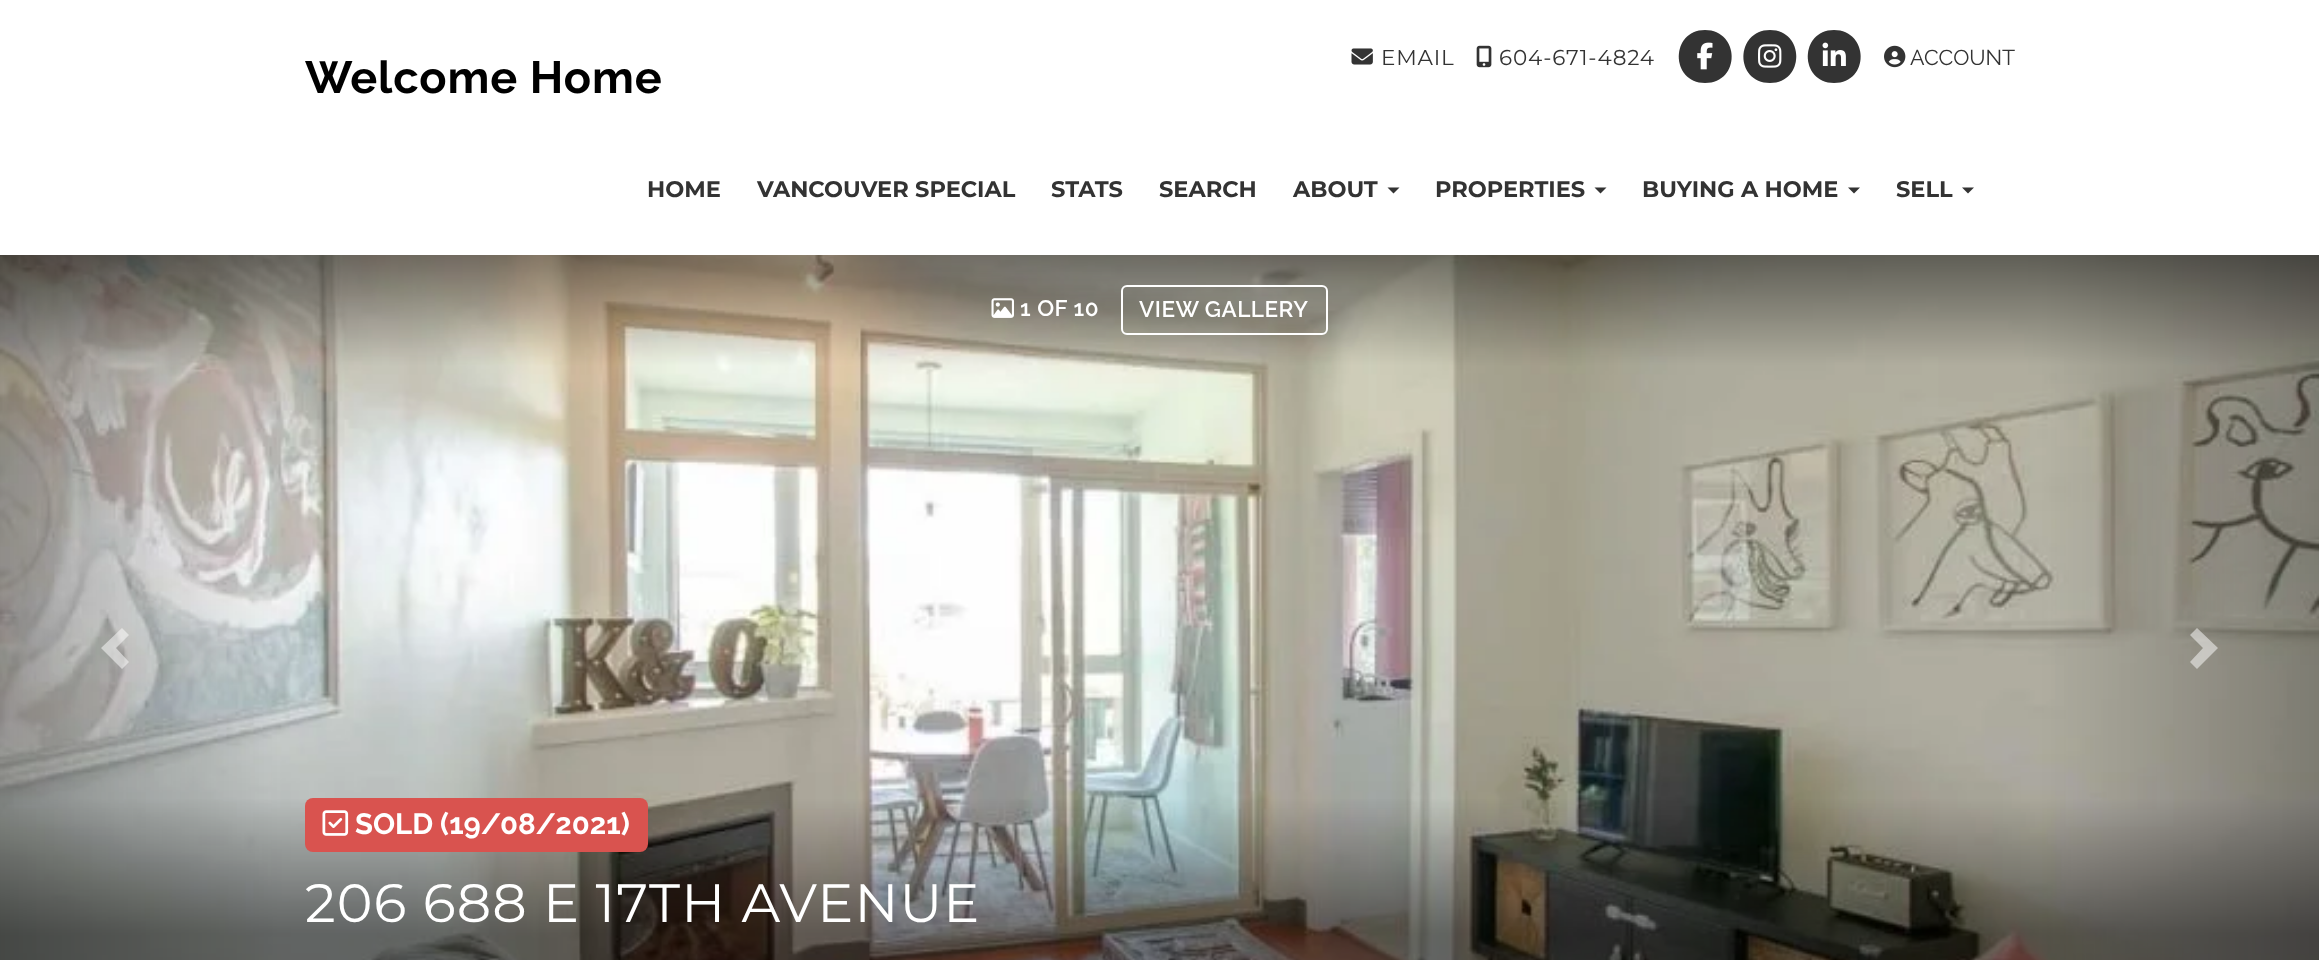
(async () => {
  const canvas = document.querySelector("canvas");
  canvas.width = 2319;
  canvas.height = 960;
  const ctx = canvas.getContext("2d");
  ctx.miterLimit = 4;
  ctx.fontKerning = "normal";
  async function loadImage(src) {
    const img = new Image();
    img.src = src;
    await img.decode();
    return img;
  }
  let path;

  ctx.fillStyle = "#ffffff";
  ctx.fillRect(0, 0, 2319, 960);
  ctx.drawImage(await loadImage("img/1.png"), 1351, 48, 22, 17);
  ctx.drawImage(await loadImage("img/2.png"), 1476, 45, 16, 23);
  ctx.fillStyle = "#333333";
  path = new Path2D("M1705 83C1741 83 1740 30 1705 30C1670 30 1670 83 1705 83Z");
  ctx.fill(path);
  ctx.drawImage(await loadImage("img/3.png"), 1697, 42, 16, 28);
  path = new Path2D("M1770 83C1805 83 1805 30 1770 30C1735 30 1734 83 1770 83Z");
  ctx.fill(path);
  ctx.drawImage(await loadImage("img/4.png"), 1758, 44, 24, 24);
  path = new Path2D("M1834 83C1870 83 1869 30 1834 30C1799 30 1799 83 1834 83Z");
  ctx.fill(path);
  ctx.drawImage(await loadImage("img/5.png"), 1822, 42, 24, 24);
  ctx.drawImage(await loadImage("img/6.png"), 1884, 45, 22, 23);
  path = new Path2D("M1387.5 187.5H1399.5L1393.5 193.5Z");
  ctx.fill(path);
  path = new Path2D("M1594.5 187.5H1606.5L1600.5 193.5Z");
  ctx.fill(path);
  path = new Path2D("M1848 187.5H1860L1854 193.5Z");
  ctx.fill(path);
  path = new Path2D("M1962 187.5H1974L1968 193.5Z");
  ctx.fill(path);
  ctx.drawImage(await loadImage("img/7.png"), 0, 255, 2319, 705);
  ctx.drawImage(await loadImage("img/8.png"), 991, 298, 23, 20);
  ctx.beginPath();
  ctx.roundRect(1122, 286, 205, 48, 5);
  ctx.strokeStyle = "#ffffff";
  ctx.lineWidth = 2;
  ctx.stroke();
  ctx.fillStyle = "rgba(255, 255, 255, 0.5)";
  path = new Path2D("M129 635L116 648L129 662L122 669L101 648L122 628Z");
  ctx.fill(path);
  path = new Path2D("M2218 648L2197 669L2190 662L2203 648L2190 635L2197 628Z");
  ctx.fill(path);
  ctx.fillStyle = "#d9534f";
  ctx.beginPath();
  ctx.roundRect(305, 798, 343, 54, 8);
  ctx.fill();
  ctx.drawImage(await loadImage("img/9.png"), 322, 810, 27, 26);
  ctx.letterSpacing = "0.8px";
  ctx.font = "21.5px Montserrat";
  ctx.fillStyle = "#333333";
  ctx.fillText("EMAIL", 1381, 65);
  ctx.fillText("604-671-4824", 1499, 65);
  ctx.letterSpacing = "0px";
  ctx.font = "21.5px Raleway";
  ctx.fillText("ACCOUNT", 1910, 65);
  ctx.letterSpacing = "0.9px";
  ctx.font = "bold 45px Raleway";
  ctx.fillStyle = "#000000";
  ctx.fillText("Welcome Home", 305, 93);
  ctx.letterSpacing = "0px";
  ctx.font = "bold 22.5px Montserrat";
  ctx.fillStyle = "#333333";
  for (const [text, x, y] of [
    ["HOME", 647, 197],
    ["VANCOUVER SPECIAL", 757, 197],
    ["STATS", 1051, 197],
    ["SEARCH", 1159, 197],
    ["ABOUT", 1293, 197],
    ["PROPERTIES", 1435, 197],
    ["BUYING A HOME", 1642, 197],
    ["SELL", 1896, 197],
  ]) {
    ctx.fillText(text, x, y);
  }
  ctx.letterSpacing = "0.5px";
  ctx.font = "600 22.5px Raleway";
  ctx.fillStyle = "#ffffff";
  ctx.fillText("1 OF 10", 1020, 316);
  ctx.fillText("VIEW GALLERY", 1139, 317);
  ctx.letterSpacing = "0px";
  ctx.font = "bold 29.25px Raleway";
  ctx.fillText("SOLD (19/08/2021)", 355, 834);
  ctx.letterSpacing = "1.1px";
  ctx.font = "54px Montserrat";
  ctx.fillText("206 688 E 17TH AVENUE", 305, 922);
})();
